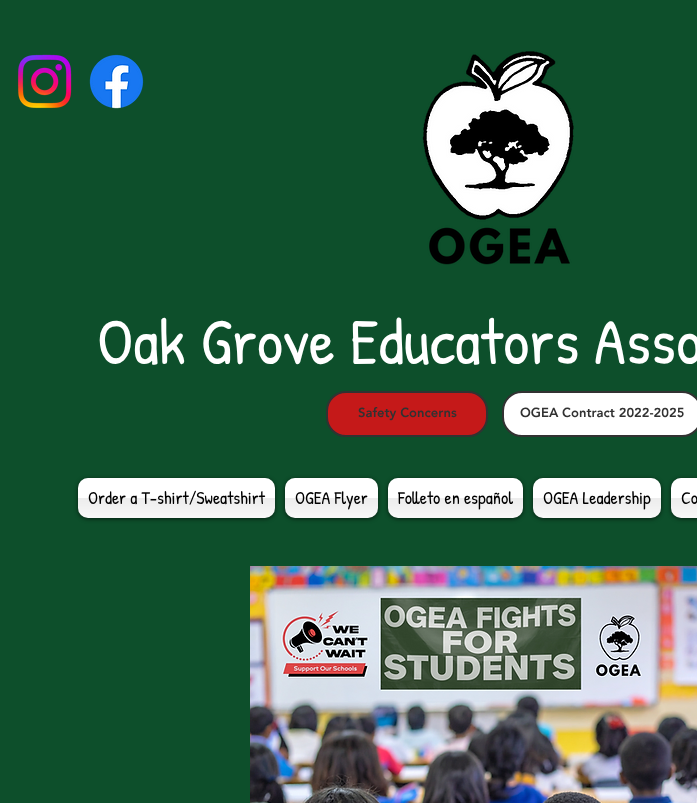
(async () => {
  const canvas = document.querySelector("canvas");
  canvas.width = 697;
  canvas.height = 803;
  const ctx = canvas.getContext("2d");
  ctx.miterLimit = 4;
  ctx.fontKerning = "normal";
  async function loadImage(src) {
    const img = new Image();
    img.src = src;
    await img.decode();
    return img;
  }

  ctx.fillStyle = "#0d4f2b";
  ctx.fillRect(0, 0, 697, 803);
  ctx.drawImage(await loadImage("img/1.png"), 17, 54, 55, 55);
  ctx.drawImage(await loadImage("img/2.png"), 89, 54, 55, 55);
  ctx.drawImage(await loadImage("img/3.png"), 422, 51, 152, 214);
  ctx.fillStyle = "#c51919";
  ctx.beginPath();
  ctx.roundRect(327, 392, 160, 44, 19);
  ctx.fill();
  ctx.strokeStyle = "#323232";
  ctx.lineWidth = 2;
  ctx.stroke();
  ctx.fillStyle = "#ffffff";
  ctx.beginPath();
  ctx.roundRect(503, 392, 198, 44, 19);
  ctx.fill();
  ctx.stroke();
  ctx.fillStyle = "rgba(0, 0, 0, 0.6)";
  ctx.filter = "blur(2px)";
  ctx.beginPath();
  ctx.roundRect(78, 479, 197, 40, 10);
  ctx.fill();
  ctx.filter = "none";
  ctx.fillStyle = "#ffffff";
  ctx.beginPath();
  ctx.roundRect(78, 478, 197, 40, 10);
  ctx.fill();
  ctx.drawImage(await loadImage("img/4.png"), 78, 478, 197, 40);
  ctx.fillStyle = "rgba(0, 0, 0, 0.6)";
  ctx.filter = "blur(2px)";
  ctx.beginPath();
  ctx.roundRect(285, 479, 93, 40, 10);
  ctx.fill();
  ctx.filter = "none";
  ctx.fillStyle = "#ffffff";
  ctx.beginPath();
  ctx.roundRect(285, 478, 93, 40, 10);
  ctx.fill();
  ctx.drawImage(await loadImage("img/5.png"), 285, 478, 93, 40);
  ctx.fillStyle = "rgba(0, 0, 0, 0.6)";
  ctx.filter = "blur(2px)";
  ctx.beginPath();
  ctx.roundRect(388, 479, 135, 40, 10);
  ctx.fill();
  ctx.filter = "none";
  ctx.fillStyle = "#ffffff";
  ctx.beginPath();
  ctx.roundRect(388, 478, 135, 40, 10);
  ctx.fill();
  ctx.drawImage(await loadImage("img/6.png"), 388, 478, 135, 40);
  ctx.fillStyle = "rgba(0, 0, 0, 0.6)";
  ctx.filter = "blur(2px)";
  ctx.beginPath();
  ctx.roundRect(533, 479, 128, 40, 10);
  ctx.fill();
  ctx.filter = "none";
  ctx.fillStyle = "#ffffff";
  ctx.beginPath();
  ctx.roundRect(533, 478, 128, 40, 10);
  ctx.fill();
  ctx.drawImage(await loadImage("img/7.png"), 533, 478, 128, 40);
  ctx.fillStyle = "rgba(0, 0, 0, 0.6)";
  ctx.filter = "blur(2px)";
  ctx.beginPath();
  ctx.roundRect(671, 479, 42, 40, 10);
  ctx.fill();
  ctx.filter = "none";
  ctx.fillStyle = "#ffffff";
  ctx.beginPath();
  ctx.roundRect(671, 478, 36, 40, 10);
  ctx.fill();
  ctx.drawImage(await loadImage("img/8.png"), 671, 478, 26, 40);
  ctx.drawImage(await loadImage("img/9.png"), 250, 566, 447, 237);
  ctx.font = "65px Patrick Hand";
  ctx.fillText("Oak Grove Educators Asso", 97, 364);
  ctx.font = "900 13px 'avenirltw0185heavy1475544'";
  ctx.fillStyle = "#323232";
  ctx.fillText("Safety Concerns", 358, 417);
  ctx.fillText("OGEA Contract 2022-2025", 520, 417);
  ctx.font = "18px Patrick Hand";
  ctx.fillStyle = "#000000";
  for (const [text, x, y] of [
    ["Order a T-shirt/Sweatshirt", 88, 504],
    ["OGEA Flyer", 295, 504],
    ["Folleto en español", 398, 504],
    ["OGEA Leadership", 543, 504],
    ["Co", 681, 504],
  ]) {
    ctx.fillText(text, x, y);
  }
})();
